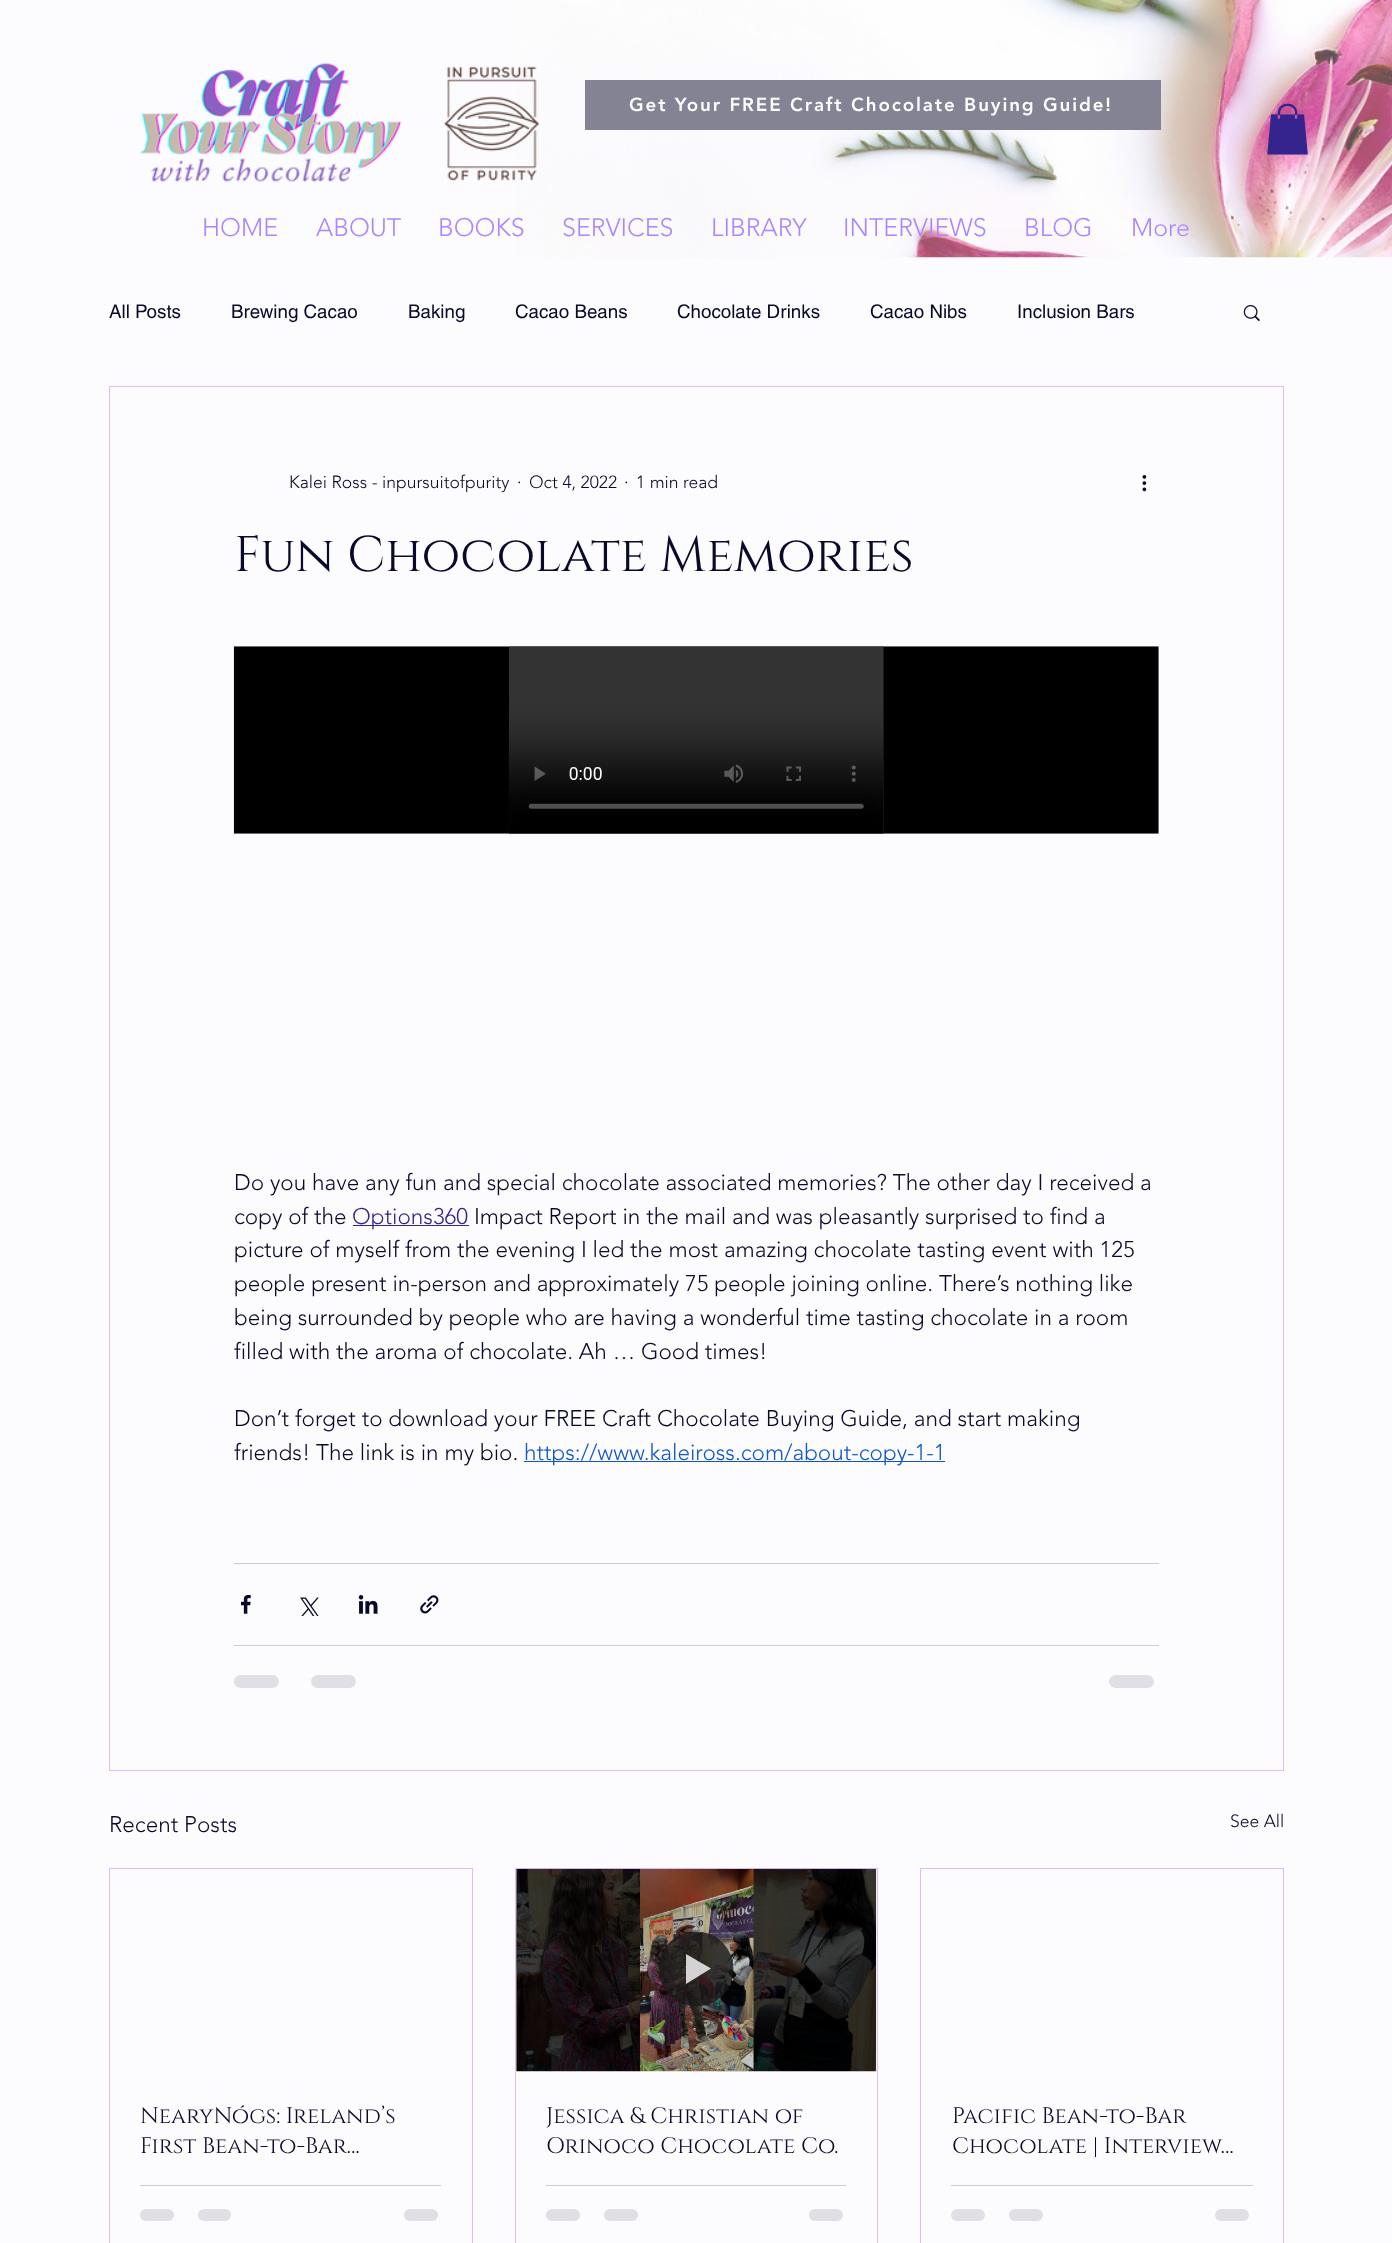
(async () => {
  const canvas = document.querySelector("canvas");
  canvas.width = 1392;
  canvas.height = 2243;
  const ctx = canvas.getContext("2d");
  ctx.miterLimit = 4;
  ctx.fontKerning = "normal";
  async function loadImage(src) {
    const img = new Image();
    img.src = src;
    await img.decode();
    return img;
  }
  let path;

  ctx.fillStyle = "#fcfcff";
  ctx.fillRect(0, 0, 1392, 2243);
  ctx.drawImage(await loadImage("img/1.png"), 140, 62, 262, 121);
  ctx.drawImage(await loadImage("img/3.png"), 516, 0, 876, 258);
  ctx.drawImage(await loadImage("img/2.png"), 444, 66, 95, 115);
  ctx.fillStyle = "#838394";
  ctx.fillRect(585, 80, 576, 50);
  ctx.drawImage(await loadImage("img/4.png"), 1267, 103, 41, 52);
  ctx.drawImage(await loadImage("img/5.png"), 1243, 305, 17, 17);
  ctx.strokeStyle = "#e0bcff";
  ctx.strokeRect(109.5, 386.5, 1174, 1384);
  ctx.drawImage(await loadImage("img/6.png"), 1142, 475, 5, 17);
  ctx.drawImage(await loadImage("img/7.png"), 233, 646, 926, 188);
  for (const [x, y, w, h, color] of [
    [353, 1225, 116, 1, "#35238e"],
    [524, 1461, 421, 1, "#1155cc"],
    [234, 1563, 925, 1, "#cbcbd4"],
  ]) {
    ctx.fillStyle = color;
    ctx.fillRect(x, y, w, h);
  }
  ctx.drawImage(await loadImage("img/8.png"), 241, 1595, 10, 19);
  ctx.drawImage(await loadImage("img/9.png"), 300, 1597, 19, 19);
  ctx.drawImage(await loadImage("img/10.png"), 358, 1595, 20, 19);
  ctx.drawImage(await loadImage("img/11.png"), 420, 1595, 19, 19);
  ctx.fillRect(234, 1645, 925, 1);
  ctx.fillStyle = "#dfdfe5";
  ctx.beginPath();
  ctx.roundRect(234, 1675, 45, 13, 6.5);
  ctx.fill();
  ctx.beginPath();
  ctx.roundRect(311, 1675, 45, 13, 6.5);
  ctx.fill();
  ctx.beginPath();
  ctx.roundRect(1109, 1675, 45, 13, 6.5);
  ctx.fill();
  ctx.strokeRect(109.5, 1868.5, 363, 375);
  ctx.fillStyle = "#cbcbd4";
  ctx.fillRect(140, 2185, 301, 1);
  ctx.fillStyle = "#dfdfe5";
  ctx.beginPath();
  ctx.roundRect(140, 2209, 34, 12, 6);
  ctx.fill();
  ctx.beginPath();
  ctx.roundRect(198, 2209, 33, 12, 6);
  ctx.fill();
  ctx.beginPath();
  ctx.roundRect(404, 2209, 34, 12, 6);
  ctx.fill();
  ctx.fillStyle = "#cacacc";
  ctx.fillRect(516, 1869, 1, 202);
  ctx.strokeRect(515.5, 1868.5, 362, 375);
  ctx.drawImage(await loadImage("img/12.png"), 516, 1868, 361, 204);
  ctx.save();
  ctx.beginPath();
  ctx.rect(659, 1931, 75, 75);
  ctx.clip();
  ctx.fillStyle = "rgba(26, 26, 26, 0.8)";
  ctx.beginPath();
  ctx.arc(696, 1969, 37.5, 0, Math.PI * 2);
  ctx.fill();
  ctx.restore();
  ctx.fillStyle = "rgba(255, 255, 255, 0.8)";
  path = new Path2D("M686 1954V1984L711 1968.5Z");
  ctx.fill(path);
  ctx.fillStyle = "#cbcbd4";
  ctx.fillRect(546, 2185, 300, 1);
  ctx.fillStyle = "#dfdfe5";
  ctx.beginPath();
  ctx.roundRect(546, 2209, 34, 12, 6);
  ctx.fill();
  ctx.beginPath();
  ctx.roundRect(604, 2209, 34, 12, 6);
  ctx.fill();
  ctx.beginPath();
  ctx.roundRect(809, 2209, 34, 12, 6);
  ctx.fill();
  ctx.strokeRect(920.5, 1868.5, 363, 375);
  ctx.fillStyle = "#cbcbd4";
  ctx.fillRect(951, 2185, 302, 1);
  ctx.fillStyle = "#dfdfe5";
  ctx.beginPath();
  ctx.roundRect(951, 2209, 34, 12, 6);
  ctx.fill();
  ctx.beginPath();
  ctx.roundRect(1009, 2209, 34, 12, 6);
  ctx.fill();
  ctx.beginPath();
  ctx.roundRect(1215, 2209, 34, 12, 6);
  ctx.fill();
  ctx.letterSpacing = "1.9px";
  ctx.font = "900 18.75px 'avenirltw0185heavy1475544'";
  ctx.fillStyle = "#fcfcff";
  ctx.fillText("Get Your FREE Craft Chocolate Buying Guide!", 629, 111);
  ctx.letterSpacing = "0px";
  ctx.font = "300 25px 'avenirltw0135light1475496'";
  ctx.fillStyle = "#ad85ff";
  for (const [text, x, y] of [
    ["HOME", 202, 236],
    ["ABOUT", 316, 236],
    ["BOOKS", 438, 236],
    ["SERVICES", 562, 236],
    ["LIBRARY", 711, 236],
    ["INTERVIEWS", 843, 236],
    ["BLOG", 1024, 236],
    ["More", 1131, 236],
  ]) {
    ctx.fillText(text, x, y);
  }
  ctx.font = "18.75px helvetica";
  ctx.fillStyle = "#090929";
  for (const [text, x, y] of [
    ["All Posts", 109, 318],
    ["Brewing Cacao", 231, 318],
    ["Baking", 408, 318],
    ["Cacao Beans", 515, 318],
    ["Chocolate Drinks", 677, 318],
    ["Cacao Nibs", 870, 318],
    ["Inclusion Bars", 1017, 318],
  ]) {
    ctx.fillText(text, x, y);
  }
  ctx.font = "300 17.5px 'avenirltw0135light1475496'";
  for (const [text, x, y] of [
    ["Kalei Ross - inpursuitofpurity", 289, 488],
    ["·", 517, 488],
    ["Oct 4, 2022", 529, 488],
    ["·", 624, 488],
    ["1 min read", 636, 488],
  ]) {
    ctx.fillText(text, x, y);
  }
  ctx.font = "50px Cinzel";
  ctx.fillText("Fun Chocolate Memories", 234, 571);
  ctx.font = "300 22.5px 'avenirltw0135light1475496'";
  ctx.fillText("Do you have any fun and special chocolate associated memories? The other day I received a", 234, 1190);
  ctx.fillText("copy of the", 234, 1224);
  ctx.fillStyle = "#35238e";
  ctx.fillText("Options360", 352, 1224);
  ctx.fillStyle = "#090929";
  for (const [text, x, y] of [
    ["Impact Report in the mail and was pleasantly surprised to find a", 474, 1224],
    ["picture of myself from the evening I led the most amazing chocolate tasting event with 125", 234, 1257],
    ["people present in-person and approximately 75 people joining online. There’s nothing like", 234, 1291],
    ["being surrounded by people who are having a wonderful time tasting chocolate in a room", 234, 1325],
    ["filled with the aroma of chocolate. Ah … Good times!", 234, 1359],
    ["Don’t forget to download your FREE Craft Chocolate Buying Guide, and start making", 234, 1426],
    ["friends! The link is in my bio.", 234, 1460],
  ]) {
    ctx.fillText(text, x, y);
  }
  ctx.fillStyle = "#1155cc";
  ctx.fillText("https://www.kaleiross.com/about-copy-1-1", 524, 1460);
  ctx.fillStyle = "#090929";
  ctx.fillText("Recent Posts", 109, 1832);
  ctx.font = "300 17.5px 'avenirltw0135light1475496'";
  ctx.fillText("See All", 1230, 1827);
  ctx.font = "22.5px Cinzel";
  for (const [text, x, y] of [
    ["NearyNógs: Ireland’s", 140, 2123],
    ["First Bean-to-Bar…", 140, 2153],
    ["Jessica & Christian of", 546, 2123],
    ["Orinoco Chocolate Co.", 546, 2153],
    ["Pacific Bean-to-Bar", 952, 2123],
    ["Chocolate | Interview…", 952, 2153],
  ]) {
    ctx.fillText(text, x, y);
  }
})();
